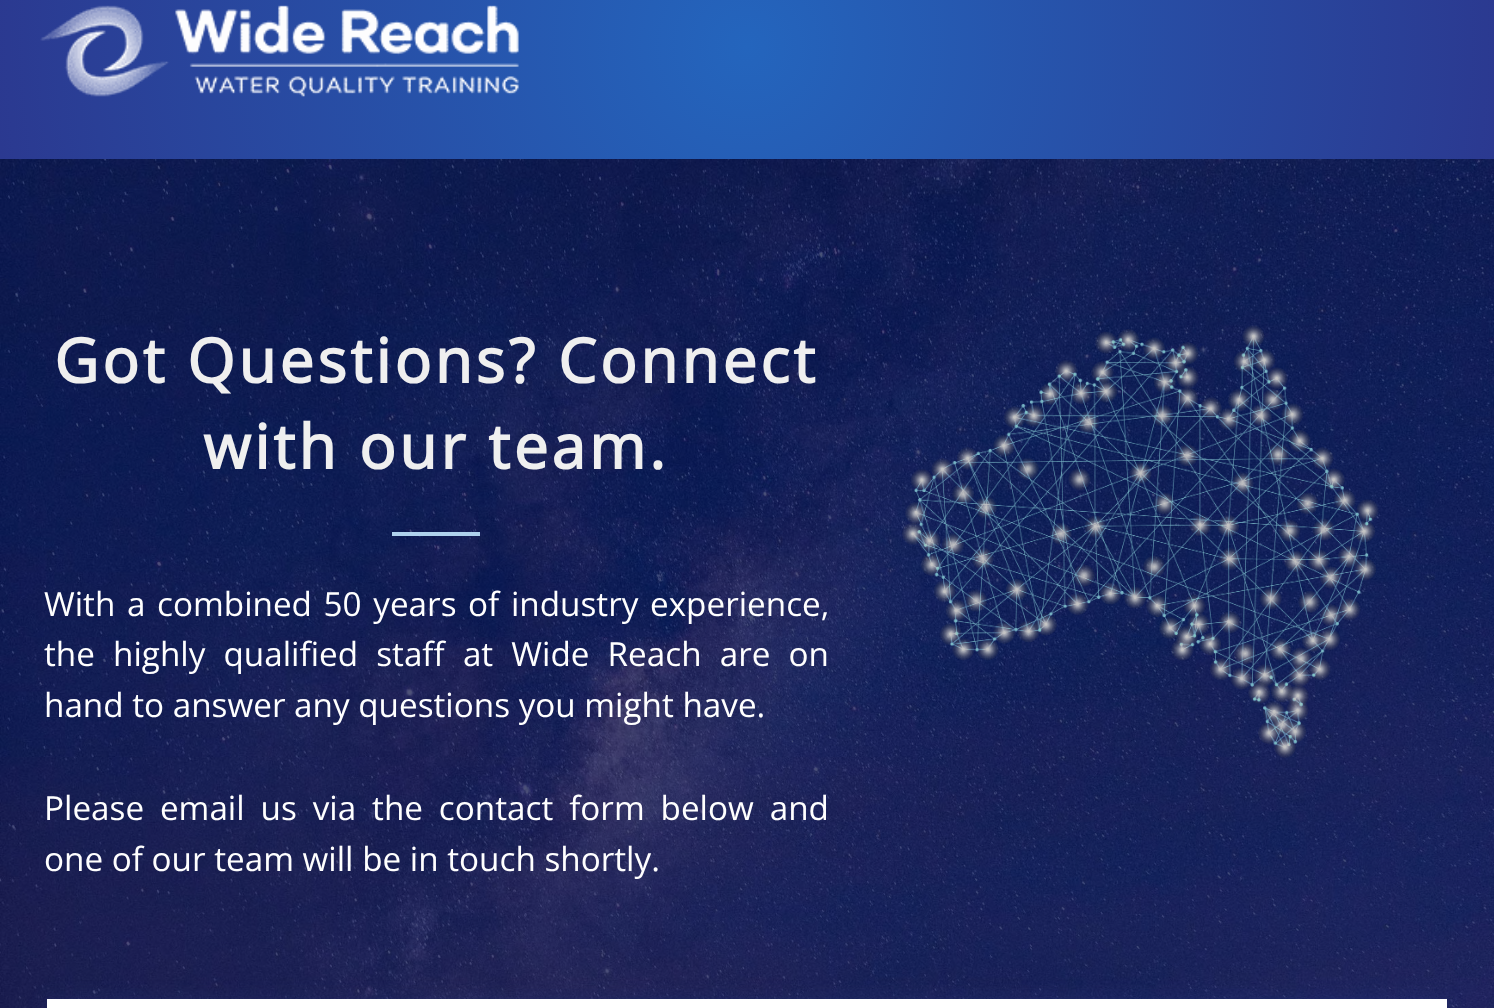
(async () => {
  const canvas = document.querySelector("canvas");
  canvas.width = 1494;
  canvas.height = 1008;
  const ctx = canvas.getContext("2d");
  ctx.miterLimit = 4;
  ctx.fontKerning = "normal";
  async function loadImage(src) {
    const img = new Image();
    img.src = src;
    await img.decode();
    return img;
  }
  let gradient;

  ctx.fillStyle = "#ffffff";
  ctx.fillRect(0, 0, 1494, 1008);
  gradient = ctx.createRadialGradient(747, 46, 0, 747, 46, 756);
  gradient.addColorStop(0, "#2465bd");
  gradient.addColorStop(1, "#2b3990");
  ctx.fillStyle = gradient;
  ctx.fillRect(0, 0, 1494, 159);
  ctx.drawImage(await loadImage("img/1.png"), 40, 5, 479, 92);
  ctx.drawImage(await loadImage("img/2.png"), 0, 159, 1494, 849);
  ctx.fillStyle = "#afd2ed";
  ctx.fillRect(392, 532, 88, 4);
  ctx.drawImage(await loadImage("img/3.png"), 902, 325, 477, 433);
  ctx.fillStyle = "rgba(43, 57, 144, 0.24)";
  ctx.filter = "blur(9px)";
  ctx.beginPath();
  ctx.rect(47, 999, 1400, 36);
  ctx.fill();
  ctx.filter = "none";
  ctx.fillStyle = "#ffffff";
  ctx.fillRect(47, 999, 1400, 9);
  ctx.letterSpacing = "3.5px";
  ctx.font = "bold 61.25px Open Sans";
  ctx.fillStyle = "#efefef";
  ctx.fillText("Got Questions? Connect", 54, 383);
  ctx.fillText("with our team.", 203, 469);
  ctx.letterSpacing = "0px";
  ctx.wordSpacing = "3px";
  ctx.font = "33.25px Open Sans";
  ctx.fillStyle = "#ffffff";
  ctx.fillText("With a combined 50 years of industry experience,", 44, 616);
  ctx.wordSpacing = "9.5px";
  ctx.fillText("the highly qualified staff at Wide Reach are on", 44, 666);
  ctx.wordSpacing = "0px";
  ctx.fillText("hand to answer any questions you might have.", 44, 717);
  ctx.wordSpacing = "7.25px";
  ctx.fillText("Please email us via the contact form below and", 44, 820);
  ctx.wordSpacing = "0px";
  ctx.fillText("one of our team will be in touch shortly.", 44, 871);
})();
